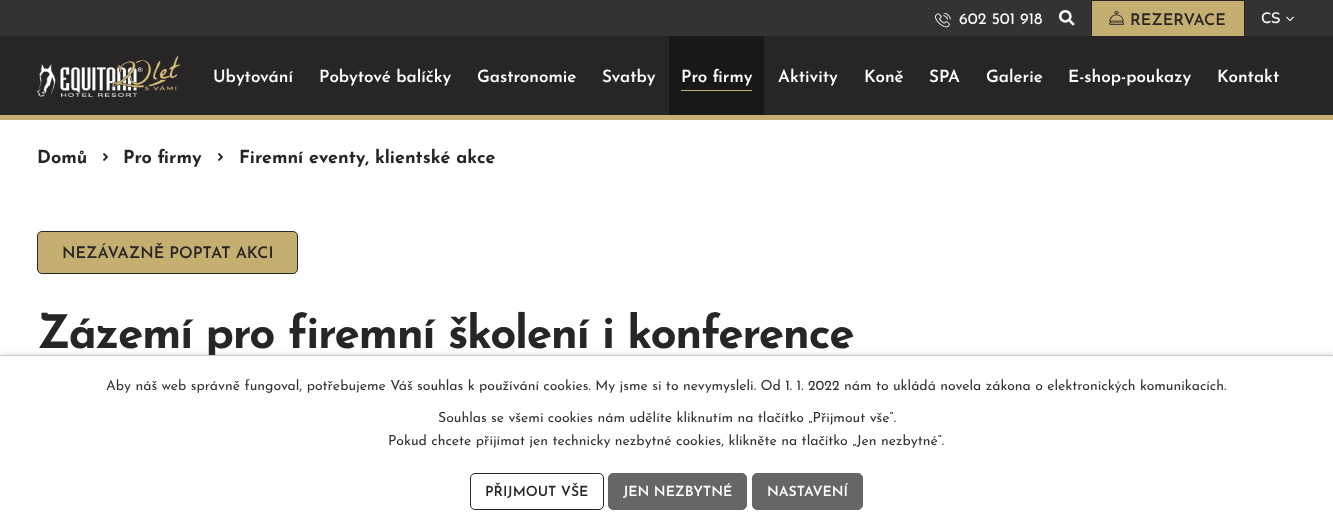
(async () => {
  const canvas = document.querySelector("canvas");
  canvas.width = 1333;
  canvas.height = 530;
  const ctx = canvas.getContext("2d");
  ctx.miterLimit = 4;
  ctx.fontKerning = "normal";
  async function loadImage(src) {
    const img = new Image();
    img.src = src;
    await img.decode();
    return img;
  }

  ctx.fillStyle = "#ffffff";
  ctx.fillRect(0, 0, 1333, 530);
  ctx.fillStyle = "#333333";
  ctx.fillRect(0, 0, 1333, 36);
  ctx.drawImage(await loadImage("img/1.png"), 935, 13, 16, 15);
  ctx.drawImage(await loadImage("img/2.png"), 1059, 10, 16, 16);
  ctx.fillStyle = "#c4ae70";
  ctx.fillRect(1092, 1, 152, 35);
  ctx.strokeStyle = "#272526";
  ctx.strokeRect(1091.5, 0.5, 153, 38);
  ctx.drawImage(await loadImage("img/3.png"), 1109, 11, 15, 14);
  ctx.drawImage(await loadImage("img/4.png"), 1286, 16, 8, 6);
  ctx.fillStyle = "#272526";
  ctx.fillRect(0, 36, 1333, 79);
  ctx.drawImage(await loadImage("img/5.png"), 37, 56, 143, 41);
  for (const [x, y, w, h, color] of [
    [0, 115, 1333, 5, "#c4ae70"],
    [669, 36, 95, 79, "#191818"],
    [681, 90, 71, 1, "#c4ae70"],
  ]) {
    ctx.fillStyle = color;
    ctx.fillRect(x, y, w, h);
  }
  ctx.drawImage(await loadImage("img/6.png"), 103, 153, 5, 8);
  ctx.drawImage(await loadImage("img/6.png"), 218, 153, 5, 8);
  ctx.beginPath();
  ctx.roundRect(37.5, 231.5, 260, 42, 4.5);
  ctx.fill();
  ctx.stroke();
  ctx.fillStyle = "rgba(0, 0, 0, 0.2)";
  ctx.filter = "blur(2.5px)";
  ctx.beginPath();
  ctx.rect(0, 355, 1333, 175);
  ctx.fill();
  ctx.filter = "none";
  ctx.font = "16px Josefin Sans";
  ctx.fillStyle = "#ffffff";
  ctx.fillText("602 501 918", 959, 24);
  ctx.font = "600 16px Josefin Sans";
  ctx.fillStyle = "#272526";
  ctx.fillText("REZERVACE", 1130, 25);
  ctx.font = "200 15px Nunito";
  ctx.fillStyle = "#ffffff";
  ctx.fillText("CS", 1261, 23);
  ctx.font = "600 17px Josefin Sans";
  for (const [text, x, y] of [
    ["Ubytování", 213, 82],
    ["Pobytové balíčky", 319, 82],
    ["Gastronomie", 477, 82],
    ["Svatby", 602, 82],
    ["Pro firmy", 681, 82],
    ["Aktivity", 778, 82],
    ["Koně", 864, 82],
    ["SPA", 929, 82],
    ["Galerie", 986, 82],
    ["E-shop-poukazy", 1068, 82],
    ["Kontakt", 1217, 82],
  ]) {
    ctx.fillText(text, x, y);
  }
  ctx.font = "bold 18px Josefin Sans";
  ctx.fillStyle = "#272526";
  for (const [text, x, y] of [
    ["Domů", 37, 163],
    ["Pro firmy", 123, 163],
    ["Firemní eventy, klientské akce", 239, 163],
  ]) {
    ctx.fillText(text, x, y);
  }
  ctx.font = "600 16px Josefin Sans";
  ctx.fillText("NEZÁVAZNĚ POPTAT AKCI", 62, 258);
  ctx.letterSpacing = "-1.3px";
  ctx.font = "bold 45.75px Josefin Sans";
  ctx.fillText("Zázemí pro firemní školení i konference", 37, 348);
  ctx.fillStyle = "#ffffff";
  ctx.fillRect(0, 356, 1333, 174);
  ctx.fillStyle = "#cccccc";
  ctx.fillRect(0, 355, 1333, 1);
  ctx.letterSpacing = "0px";
  ctx.font = "14px Josefin Sans";
  ctx.fillStyle = "#333333";
  for (const [text, x, y] of [
    ["Aby náš web správně fungoval, potřebujeme Váš souhlas k používání cookies. My jsme si to nevymysleli. Od 1. 1. 2022 nám to ukládá novela zákona o elektronických komunikacích.", 106, 390],
    ["Souhlas se všemi cookies nám udělíte kliknutím na tlačítko „Přijmout vše“.", 438, 422],
    ["Pokud chcete přijímat jen technicky nezbytné cookies, klikněte na tlačítko „Jen nezbytné“.", 388, 445],
  ]) {
    ctx.fillText(text, x, y);
  }
  ctx.beginPath();
  ctx.roundRect(470.5, 473.5, 133, 36, 4.5);
  ctx.stroke();
  ctx.font = "600 14px Josefin Sans";
  ctx.fillStyle = "#272526";
  ctx.fillText("PŘIJMOUT VŠE", 485, 496);
  ctx.fillStyle = "#666666";
  ctx.beginPath();
  ctx.roundRect(608.5, 473.5, 138, 36, 4.5);
  ctx.fill();
  ctx.strokeStyle = "#666666";
  ctx.stroke();
  ctx.fillStyle = "#ffffff";
  ctx.fillText("JEN NEZBYTNÉ", 623, 496);
  ctx.fillStyle = "#666666";
  ctx.beginPath();
  ctx.roundRect(752.5, 473.5, 110, 36, 4.5);
  ctx.fill();
  ctx.stroke();
  ctx.fillStyle = "#ffffff";
  ctx.fillText("NASTAVENÍ", 767, 496);
})();
